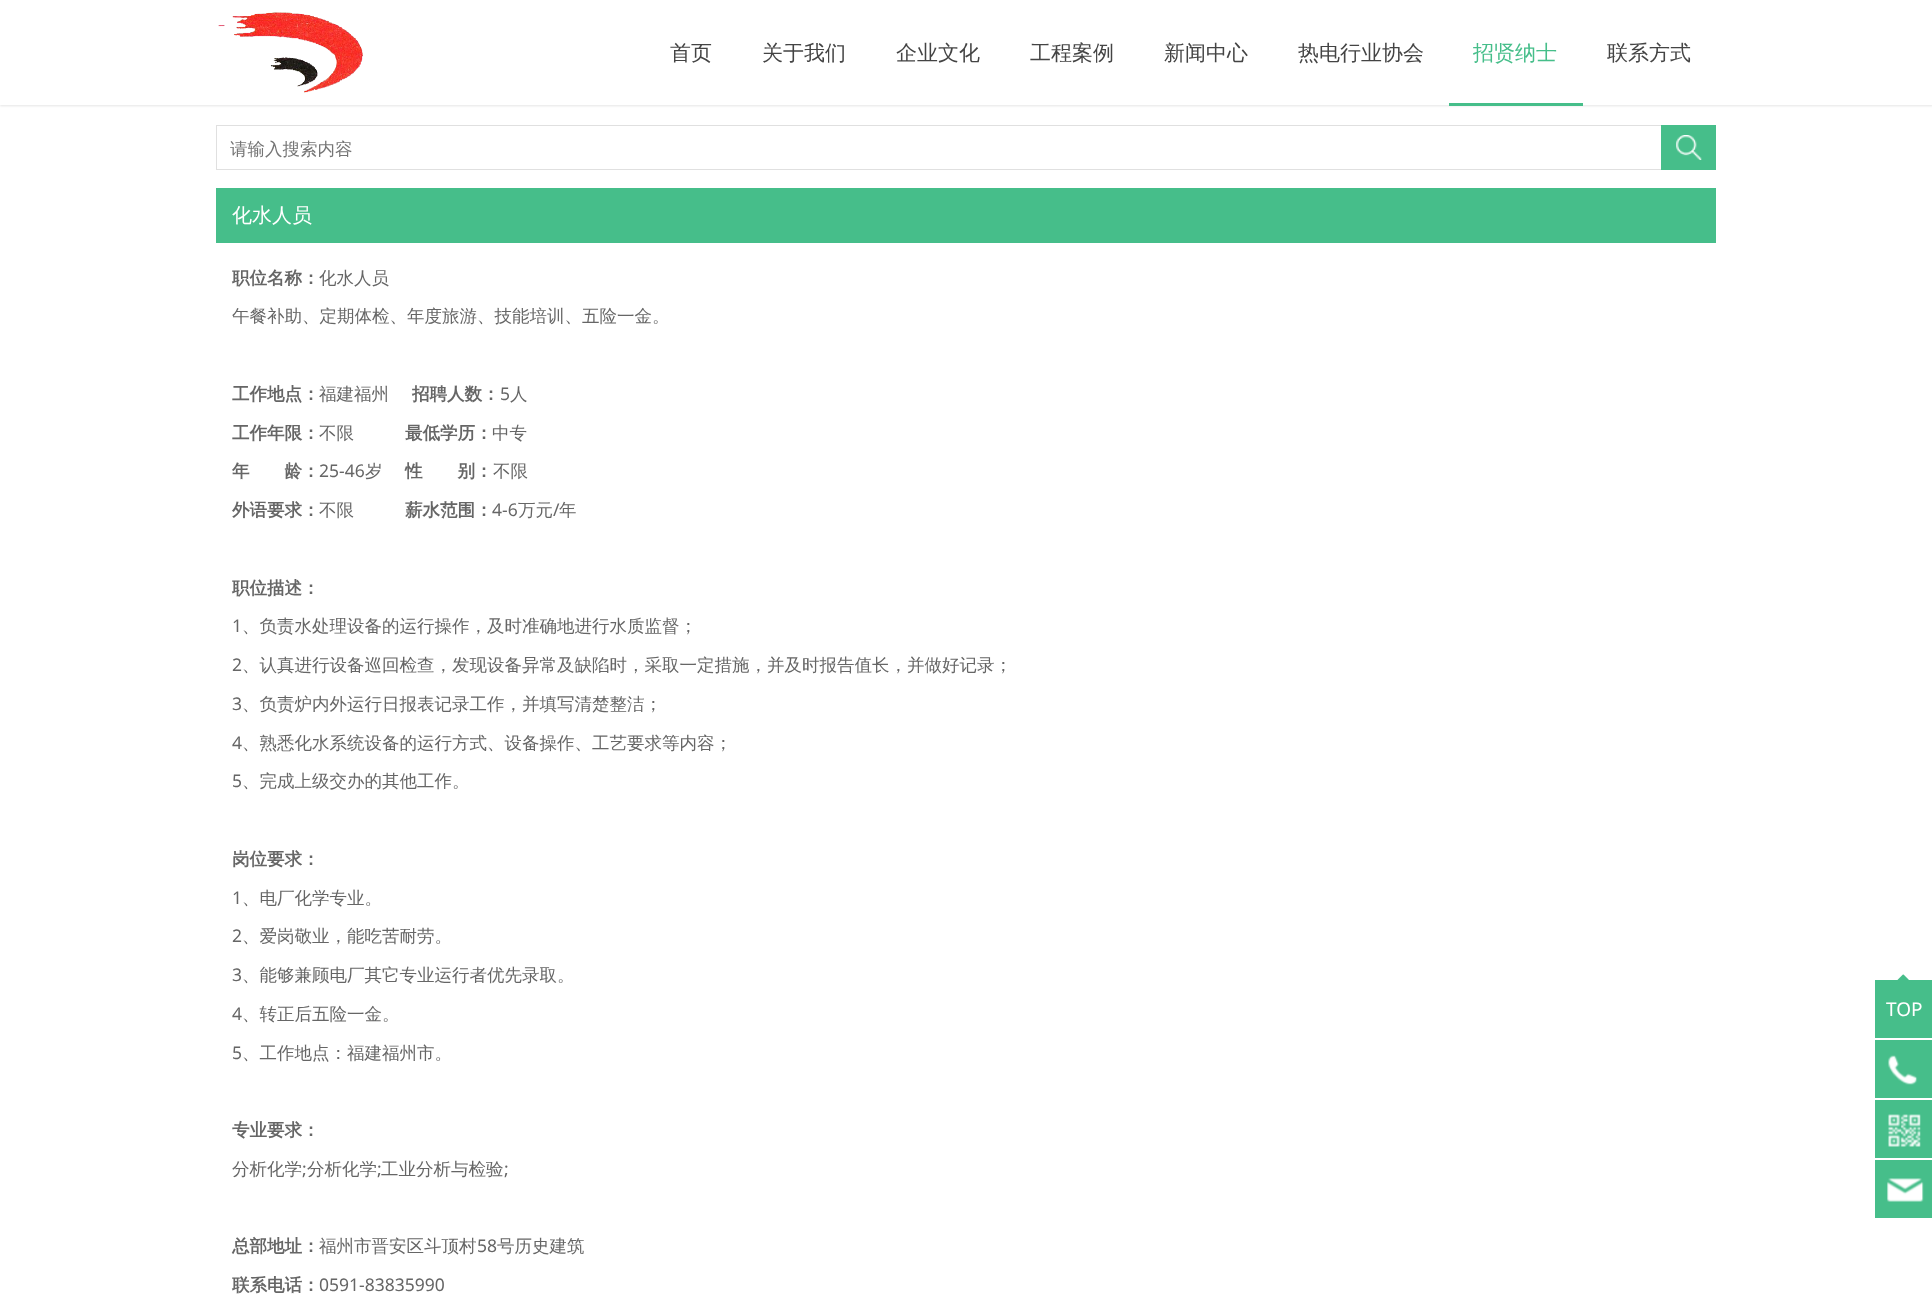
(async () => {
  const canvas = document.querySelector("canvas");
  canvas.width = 1932;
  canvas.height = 1311;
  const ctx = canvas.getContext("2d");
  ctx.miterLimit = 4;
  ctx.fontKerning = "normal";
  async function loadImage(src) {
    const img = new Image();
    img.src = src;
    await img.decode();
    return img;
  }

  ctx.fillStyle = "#ffffff";
  ctx.fillRect(0, 0, 1932, 1311);
  ctx.fillStyle = "rgba(0, 0, 0, 0.1)";
  ctx.filter = "blur(1px)";
  ctx.beginPath();
  ctx.rect(0, 1, 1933, 105);
  ctx.fill();
  ctx.filter = "none";
  ctx.fillStyle = "#ffffff";
  ctx.fillRect(0, 0, 1932, 105);
  ctx.drawImage(await loadImage("img/1.png"), 218, 12, 145, 81);
  ctx.fillStyle = "#46be8a";
  ctx.fillRect(1449, 103, 134, 3);
  ctx.strokeStyle = "#e0e0e0";
  ctx.strokeRect(216.5, 125.5, 1499, 44);
  ctx.fillRect(1661, 125, 55, 45);
  ctx.drawImage(await loadImage("img/2.png"), 1676, 135, 26, 25);
  ctx.fillRect(216, 188, 1500, 55);
  ctx.fillRect(1875, 980, 57, 58);
  ctx.drawImage(await loadImage("img/3.png"), 1897, 974, 12, 6);
  ctx.fillRect(1875, 1040, 57, 58);
  ctx.drawImage(await loadImage("img/4.png"), 1888, 1055, 30, 30);
  ctx.fillRect(1875, 1100, 57, 58);
  ctx.drawImage(await loadImage("img/5.png"), 1888, 1114, 33, 33);
  ctx.fillRect(1875, 1160, 57, 58);
  ctx.drawImage(await loadImage("img/6.png"), 1887, 1178, 37, 24);
  ctx.font = "500 21px WenQuanYi Zen Hei";
  ctx.fillStyle = "#444444";
  for (const [text, x, y] of [
    ["首页", 670, 60],
    ["关于我们", 762, 60],
    ["企业文化", 896, 60],
    ["工程案例", 1030, 60],
    ["新闻中心", 1164, 60],
    ["热电行业协会", 1298, 60],
  ]) {
    ctx.fillText(text, x, y);
  }
  ctx.fillStyle = "#46be8a";
  ctx.fillText("招贤纳士", 1473, 60);
  ctx.fillStyle = "#444444";
  ctx.fillText("联系方式", 1607, 60);
  ctx.font = "500 17.5px WenQuanYi Zen Hei";
  ctx.fillStyle = "#757575";
  ctx.fillText("请输入搜索内容", 230, 155);
  ctx.font = "500 20px WenQuanYi Zen Hei";
  ctx.fillStyle = "#ffffff";
  ctx.fillText("化水人员", 232, 222);
  ctx.font = "bold 17.5px WenQuanYi Zen Hei";
  ctx.fillStyle = "#666666";
  ctx.fillText("职位名称：", 232, 284);
  ctx.font = "500 17.5px WenQuanYi Zen Hei";
  ctx.fillText("化水人员", 319, 284);
  ctx.fillText("午餐补助、定期体检、年度旅游、技能培训、五险一金。", 232, 322);
  ctx.font = "bold 17.5px WenQuanYi Zen Hei";
  ctx.fillText("工作地点：", 232, 400);
  ctx.font = "500 17.5px WenQuanYi Zen Hei";
  ctx.fillText("福建福州", 319, 400);
  ctx.font = "bold 17.5px WenQuanYi Zen Hei";
  ctx.fillText("招聘人数：", 412, 400);
  ctx.font = "17.5px Noto Sans";
  ctx.fillText("5", 500, 400);
  ctx.font = "500 17.5px WenQuanYi Zen Hei";
  ctx.fillText("人", 510, 400);
  ctx.font = "bold 17.5px WenQuanYi Zen Hei";
  ctx.fillText("工作年限：", 232, 439);
  ctx.font = "500 17.5px WenQuanYi Zen Hei";
  ctx.fillText("不限", 319, 439);
  ctx.font = "bold 17.5px WenQuanYi Zen Hei";
  ctx.fillText("最低学历：", 405, 439);
  ctx.font = "500 17.5px WenQuanYi Zen Hei";
  ctx.fillText("中专", 492, 439);
  ctx.font = "bold 17.5px WenQuanYi Zen Hei";
  ctx.fillText("年　　龄：", 232, 477);
  ctx.font = "17.5px Noto Sans";
  ctx.fillText("25-46", 319, 477);
  ctx.font = "500 17.5px WenQuanYi Zen Hei";
  ctx.fillText("岁", 365, 477);
  ctx.font = "bold 17.5px WenQuanYi Zen Hei";
  ctx.fillText("性　　别：", 405, 477);
  ctx.font = "500 17.5px WenQuanYi Zen Hei";
  ctx.fillText("不限", 493, 477);
  ctx.font = "bold 17.5px WenQuanYi Zen Hei";
  ctx.fillText("外语要求：", 232, 516);
  ctx.font = "500 17.5px WenQuanYi Zen Hei";
  ctx.fillText("不限", 319, 516);
  ctx.font = "bold 17.5px WenQuanYi Zen Hei";
  ctx.fillText("薪水范围：", 405, 516);
  ctx.font = "17.5px Noto Sans";
  ctx.fillText("4-6", 492, 516);
  ctx.font = "500 17.5px WenQuanYi Zen Hei";
  ctx.fillText("万元", 518, 516);
  ctx.font = "17.5px Noto Sans";
  ctx.fillText("/", 553, 516);
  ctx.font = "500 17.5px WenQuanYi Zen Hei";
  ctx.fillText("年", 559, 516);
  ctx.font = "bold 17.5px WenQuanYi Zen Hei";
  ctx.fillText("职位描述：", 232, 594);
  ctx.font = "17.5px Noto Sans";
  ctx.fillText("1", 232, 632);
  ctx.font = "500 17.5px WenQuanYi Zen Hei";
  ctx.fillText("、负责水处理设备的运行操作，及时准确地进行水质监督；", 242, 632);
  ctx.font = "17.5px Noto Sans";
  ctx.fillText("2", 232, 671);
  ctx.font = "500 17.5px WenQuanYi Zen Hei";
  ctx.fillText("、认真进行设备巡回检查，发现设备异常及缺陷时，采取一定措施，并及时报告值长，并做好记录；", 242, 671);
  ctx.font = "17.5px Noto Sans";
  ctx.fillText("3", 232, 710);
  ctx.font = "500 17.5px WenQuanYi Zen Hei";
  ctx.fillText("、负责炉内外运行日报表记录工作，并填写清楚整洁；", 242, 710);
  ctx.font = "17.5px Noto Sans";
  ctx.fillText("4", 232, 749);
  ctx.font = "500 17.5px WenQuanYi Zen Hei";
  ctx.fillText("、熟悉化水系统设备的运行方式、设备操作、工艺要求等内容；", 242, 749);
  ctx.font = "17.5px Noto Sans";
  ctx.fillText("5", 232, 787);
  ctx.font = "500 17.5px WenQuanYi Zen Hei";
  ctx.fillText("、完成上级交办的其他工作。", 242, 787);
  ctx.font = "bold 17.5px WenQuanYi Zen Hei";
  ctx.fillText("岗位要求：", 232, 865);
  ctx.font = "17.5px Noto Sans";
  ctx.fillText("1", 232, 904);
  ctx.font = "500 17.5px WenQuanYi Zen Hei";
  ctx.fillText("、电厂化学专业。", 242, 904);
  ctx.font = "17.5px Noto Sans";
  ctx.fillText("2", 232, 942);
  ctx.font = "500 17.5px WenQuanYi Zen Hei";
  ctx.fillText("、爱岗敬业，能吃苦耐劳。", 242, 942);
  ctx.font = "17.5px Noto Sans";
  ctx.fillText("3", 232, 981);
  ctx.font = "500 17.5px WenQuanYi Zen Hei";
  ctx.fillText("、能够兼顾电厂其它专业运行者优先录取。", 242, 981);
  ctx.font = "17.5px Noto Sans";
  ctx.fillText("4", 232, 1020);
  ctx.font = "500 17.5px WenQuanYi Zen Hei";
  ctx.fillText("、转正后五险一金。", 242, 1020);
  ctx.font = "17.5px Noto Sans";
  ctx.fillText("5", 232, 1059);
  ctx.font = "500 17.5px WenQuanYi Zen Hei";
  ctx.fillText("、工作地点：福建福州市。", 242, 1059);
  ctx.font = "bold 17.5px WenQuanYi Zen Hei";
  ctx.fillText("专业要求：", 232, 1136);
  ctx.font = "500 17.5px WenQuanYi Zen Hei";
  ctx.fillText("分析化学", 232, 1175);
  ctx.font = "17.5px Noto Sans";
  ctx.fillText(";", 302, 1175);
  ctx.font = "500 17.5px WenQuanYi Zen Hei";
  ctx.fillText("分析化学", 307, 1175);
  ctx.font = "17.5px Noto Sans";
  ctx.fillText(";", 377, 1175);
  ctx.font = "500 17.5px WenQuanYi Zen Hei";
  ctx.fillText("工业分析与检验", 381, 1175);
  ctx.font = "17.5px Noto Sans";
  ctx.fillText(";", 504, 1175);
  ctx.font = "bold 17.5px WenQuanYi Zen Hei";
  ctx.fillText("总部地址：", 232, 1252);
  ctx.font = "500 17.5px WenQuanYi Zen Hei";
  ctx.fillText("福州市晋安区斗顶村", 319, 1252);
  ctx.font = "17.5px Noto Sans";
  ctx.fillText("58", 477, 1252);
  ctx.font = "500 17.5px WenQuanYi Zen Hei";
  ctx.fillText("号历史建筑", 497, 1252);
  ctx.font = "bold 17.5px WenQuanYi Zen Hei";
  ctx.fillText("联系电话：", 232, 1291);
  ctx.font = "17.5px Noto Sans";
  ctx.fillText("0591-83835990", 319, 1291);
  ctx.font = "19px Noto Sans";
  ctx.fillStyle = "#ffffff";
  ctx.fillText("TOP", 1886, 1016);
})();
